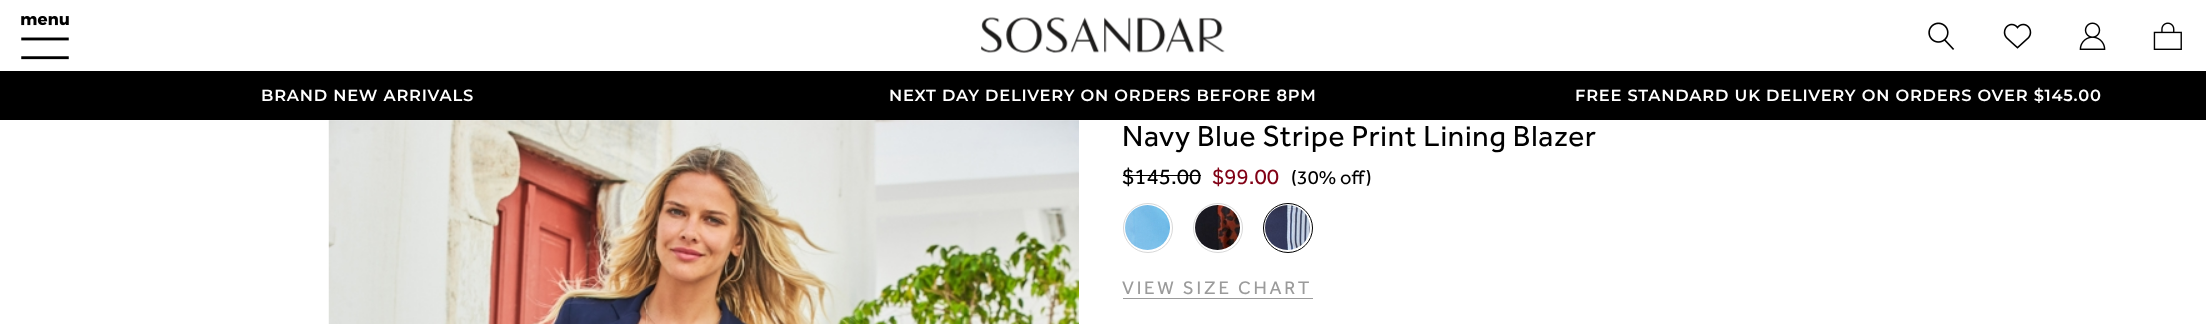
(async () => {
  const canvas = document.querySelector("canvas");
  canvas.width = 2206;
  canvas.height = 324;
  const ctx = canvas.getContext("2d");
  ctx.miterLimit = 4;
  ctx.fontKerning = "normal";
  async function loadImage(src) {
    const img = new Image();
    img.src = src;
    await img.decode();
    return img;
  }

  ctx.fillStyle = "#ffffff";
  ctx.fillRect(0, 0, 2206, 324);
  ctx.drawImage(await loadImage("img/1.png"), 21, 16, 48, 44);
  ctx.drawImage(await loadImage("img/2.png"), 981, 17, 244, 36);
  ctx.drawImage(await loadImage("img/3.png"), 1928, 22, 27, 28);
  ctx.drawImage(await loadImage("img/4.png"), 2003, 23, 29, 26);
  ctx.drawImage(await loadImage("img/5.png"), 2079, 22, 27, 28);
  ctx.drawImage(await loadImage("img/6.png"), 2153, 22, 29, 28);
  ctx.fillStyle = "#000000";
  ctx.fillRect(0, 71, 2206, 49);
  ctx.drawImage(await loadImage("img/7.png"), 328, 120, 751, 204);
  ctx.fillRect(1123, 175, 78, 1);
  ctx.beginPath();
  ctx.arc(1148, 228, 24.5, 0, Math.PI * 2);
  ctx.strokeStyle = "#d8d8d8";
  ctx.stroke();
  ctx.drawImage(await loadImage("img/8.png"), 1125, 205, 45, 45);
  ctx.beginPath();
  ctx.arc(1218, 228, 24.5, 0, Math.PI * 2);
  ctx.stroke();
  ctx.drawImage(await loadImage("img/9.png"), 1195, 205, 45, 45);
  ctx.beginPath();
  ctx.arc(1288, 228, 24.5, 0, Math.PI * 2);
  ctx.strokeStyle = "#000000";
  ctx.stroke();
  ctx.drawImage(await loadImage("img/10.png"), 1265, 205, 45, 45);
  ctx.fillStyle = "#9b9b9b";
  ctx.fillRect(1123, 298, 190, 1);
  ctx.letterSpacing = "0.8px";
  ctx.font = "600 16.25px Montserrat";
  ctx.fillStyle = "#ffffff";
  for (const [text, x, y] of [
    ["BRAND NEW ARRIVALS", 261, 101],
    ["NEXT DAY DELIVERY ON ORDERS BEFORE 8PM", 889, 101],
    ["FREE STANDARD UK DELIVERY ON ORDERS OVER $‌145.00", 1575, 101],
  ]) {
    ctx.fillText(text, x, y);
  }
  ctx.letterSpacing = "0.75px";
  ctx.font = "30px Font";
  ctx.fillStyle = "#000000";
  ctx.fillText("Navy Blue Stripe Print Lining Blazer", 1122, 146);
  ctx.letterSpacing = "0px";
  ctx.font = "22.5px Font";
  ctx.fillText("$‌145.00", 1122, 184);
  ctx.fillStyle = "#810115";
  ctx.fillText("$‌99.00", 1212, 184);
  ctx.font = "20px Font";
  ctx.fillStyle = "#000000";
  ctx.fillText("(30% off)", 1291, 184);
  ctx.letterSpacing = "2.75px";
  ctx.font = "18.75px Font";
  ctx.fillStyle = "#9b9b9b";
  ctx.fillText("VIEW SIZE CHART", 1122, 294);
})();
